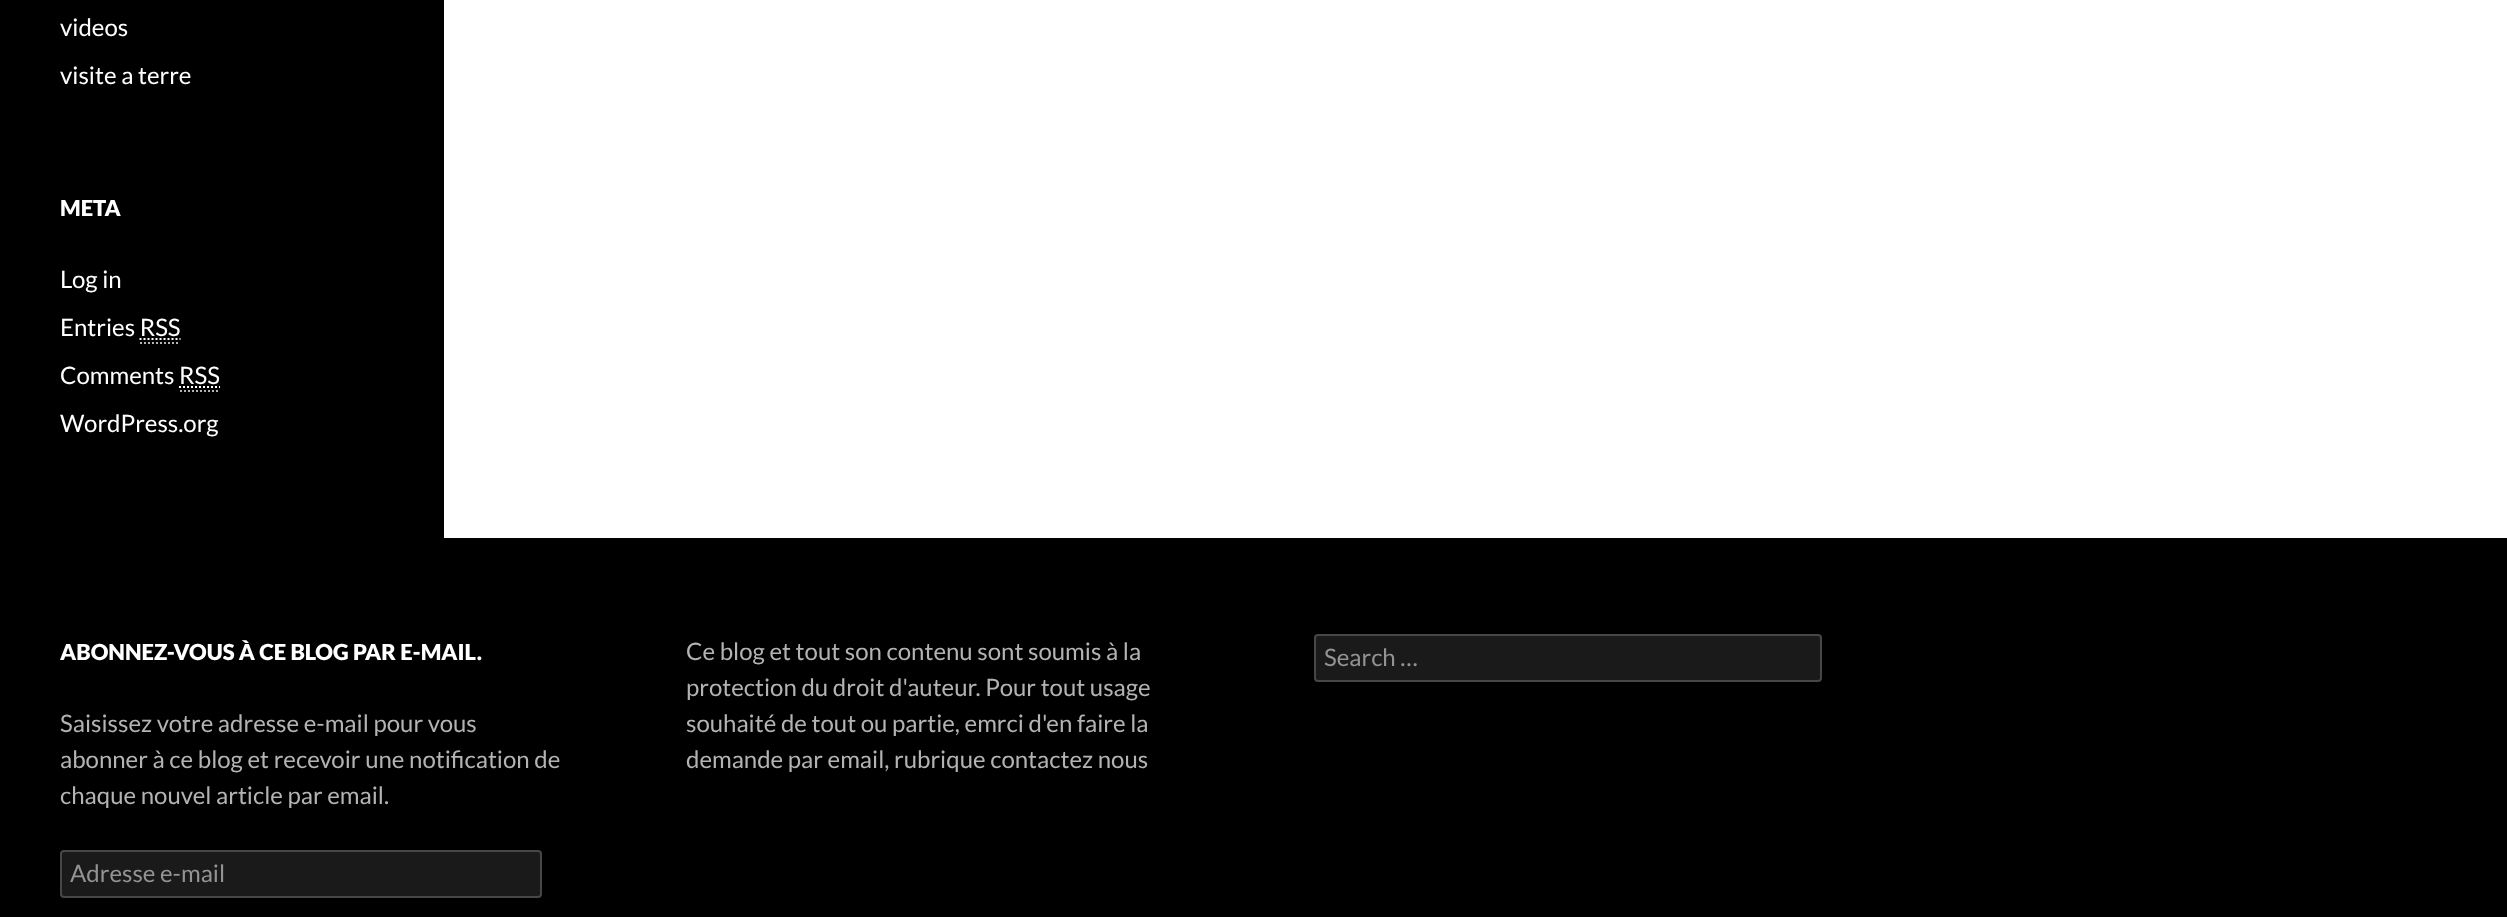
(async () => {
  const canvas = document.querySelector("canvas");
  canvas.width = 2507;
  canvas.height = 917;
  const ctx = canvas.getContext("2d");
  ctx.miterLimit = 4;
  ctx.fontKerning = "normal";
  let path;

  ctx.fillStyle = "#ffffff";
  ctx.fillRect(0, 0, 2507, 917);
  ctx.fillStyle = "#000000";
  ctx.fillRect(0, 0, 444, 538);
  path = new Path2D("M140 343H180");
  ctx.strokeStyle = "#b3b3b3";
  ctx.lineWidth = 2;
  ctx.setLineDash([2, 2]);
  ctx.stroke(path);
  path = new Path2D("M139.5 339H180.5");
  ctx.strokeStyle = "#ffffff";
  ctx.stroke(path);
  path = new Path2D("M180 391H220");
  ctx.strokeStyle = "#b3b3b3";
  ctx.stroke(path);
  path = new Path2D("M179 387H220");
  ctx.strokeStyle = "#ffffff";
  ctx.stroke(path);
  ctx.fillRect(0, 538, 2507, 379);
  ctx.fillStyle = "#1a1a1a";
  ctx.beginPath();
  ctx.roundRect(60, 850, 482, 48, 4);
  ctx.fill();
  ctx.beginPath();
  ctx.roundRect(61, 851, 480, 46, 3);
  ctx.strokeStyle = "rgba(255, 255, 255, 0.2)";
  ctx.setLineDash([]);
  ctx.stroke();
  ctx.beginPath();
  ctx.roundRect(1314, 634, 508, 48, 4);
  ctx.fill();
  ctx.beginPath();
  ctx.roundRect(1315, 635, 506, 46, 3);
  ctx.stroke();
  ctx.font = "24px Lato";
  ctx.fillStyle = "#ffffff";
  ctx.fillText("videos", 60, 36);
  ctx.fillText("visite a terre", 60, 84);
  ctx.font = "900 22px Lato";
  ctx.fillText("META", 60, 216);
  ctx.font = "24px Lato";
  for (const [text, x, y] of [
    ["Log in", 60, 288],
    ["Entries RSS", 60, 336],
    ["Comments RSS", 60, 384],
    ["WordPress.org", 60, 432],
  ]) {
    ctx.fillText(text, x, y);
  }
  ctx.font = "900 22px Lato";
  ctx.fillText("ABONNEZ-VOUS À CE BLOG PAR E-MAIL.", 60, 660);
  ctx.font = "24px Lato";
  ctx.fillStyle = "#b3b3b3";
  for (const [text, x, y] of [
    ["Saisissez votre adresse e-mail pour vous", 60, 732],
    ["abonner à ce blog et recevoir une notification de", 60, 768],
    ["chaque nouvel article par email.", 60, 804],
  ]) {
    ctx.fillText(text, x, y);
  }
  ctx.fillStyle = "#939393";
  ctx.fillText("Adresse e-mail", 70, 882);
  ctx.fillStyle = "#b3b3b3";
  for (const [text, x, y] of [
    ["Ce blog et tout son contenu sont soumis à la", 686, 660],
    ["protection du droit d'auteur. Pour tout usage", 686, 696],
    ["souhaité de tout ou partie, emrci d'en faire la", 686, 732],
    ["demande par email, rubrique contactez nous", 686, 768],
  ]) {
    ctx.fillText(text, x, y);
  }
  ctx.fillStyle = "#939393";
  ctx.fillText("Search …", 1324, 666);
})();
